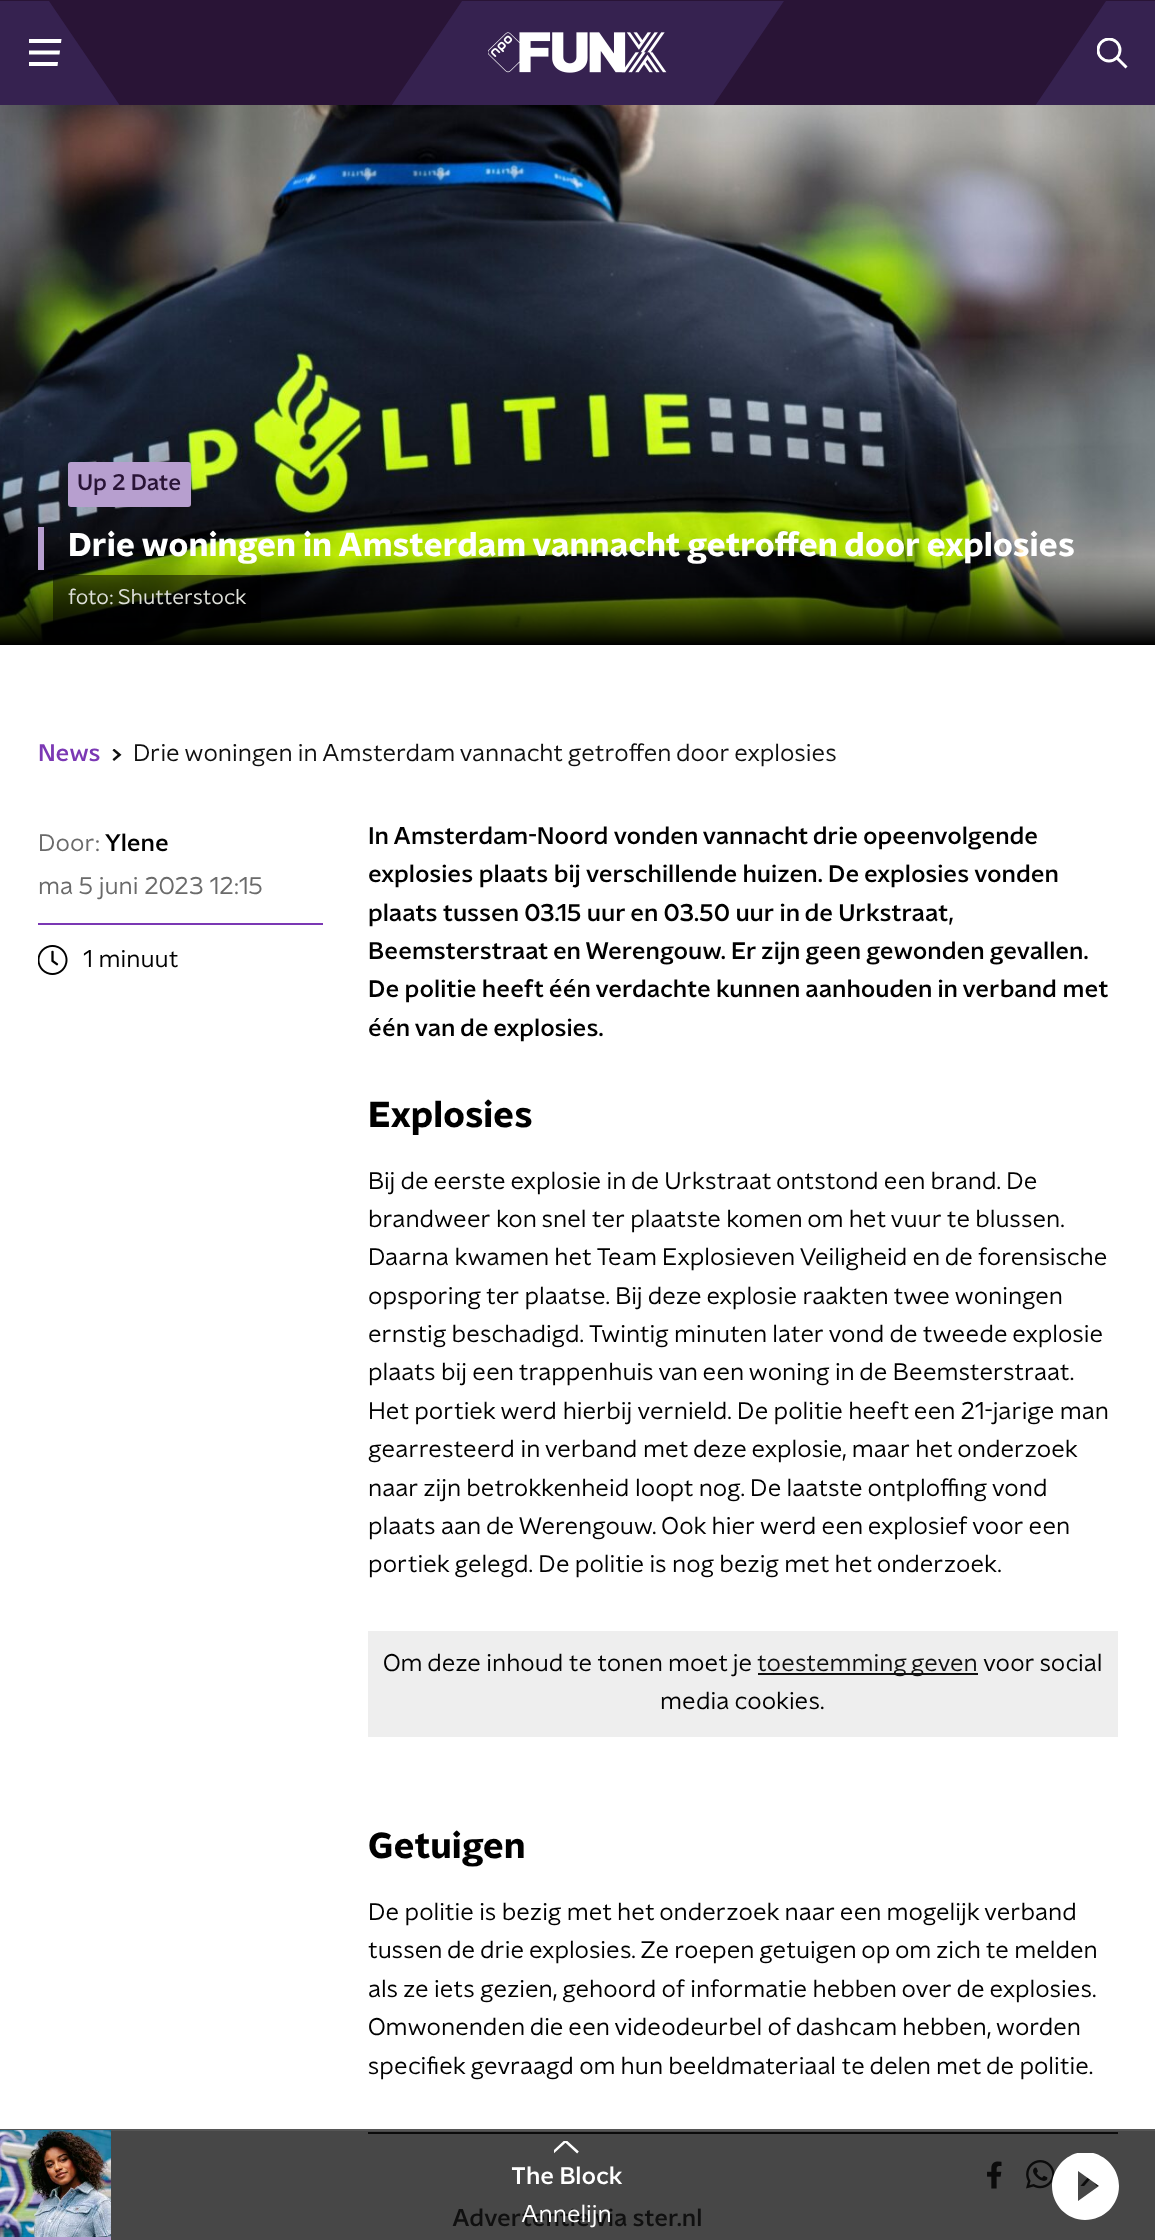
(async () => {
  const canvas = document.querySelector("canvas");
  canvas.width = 1155;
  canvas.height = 2240;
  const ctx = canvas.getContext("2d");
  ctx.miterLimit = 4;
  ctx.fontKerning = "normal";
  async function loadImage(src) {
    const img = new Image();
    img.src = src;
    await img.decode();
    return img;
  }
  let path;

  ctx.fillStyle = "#ffffff";
  ctx.fillRect(0, 0, 1155, 2240);
  ctx.fillStyle = "#291436";
  ctx.fillRect(0, 0, 1155, 105);
  ctx.save();
  ctx.beginPath();
  ctx.rect(0, 0, 1155, 105);
  ctx.clip();
  ctx.fillStyle = "#362250";
  path = new Path2D("M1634 647L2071 1H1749L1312 647ZM991 647L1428 1H1106L669 647ZM-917 1H-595L-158 647H-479ZM347 647L416 544L784 1H462L256 306L49 1H-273L94 544L25 647Z");
  ctx.fill(path);
  ctx.restore();
  ctx.save();
  ctx.beginPath();
  ctx.rect(29, 36, 33, 33);
  ctx.clip();
  ctx.fillStyle = "#ffffff";
  path = new Path2D("M28.5 39H61.5L61 43H28.5ZM28.5 50.5H60L59.5 54.5H28.5ZM28.5 62H58L57.5 66H28.5Z");
  ctx.fill(path);
  ctx.restore();
  ctx.drawImage(await loadImage("img/1.png"), 488, 32, 179, 41);
  ctx.save();
  ctx.beginPath();
  ctx.rect(1097, 38, 30, 30);
  ctx.clip();
  ctx.beginPath();
  ctx.arc(1109, 50, 11, 0, Math.PI * 2);
  ctx.strokeStyle = "#ffffff";
  ctx.lineWidth = 2.9;
  ctx.stroke();
  ctx.restore();
  path = new Path2D("M1117 58L1125.5 66.5");
  ctx.strokeStyle = "#ffffff";
  ctx.lineWidth = 2.9;
  ctx.lineCap = "square";
  ctx.stroke(path);
  ctx.drawImage(await loadImage("img/2.png"), 0, 105, 1155, 540);
  ctx.fillStyle = "#b79fcf";
  ctx.beginPath();
  ctx.roundRect(68, 462, 123, 45, 3);
  ctx.fill();
  for (const [x, y, w, h, color] of [
    [38, 527, 6, 43, "#b79fcf"],
    [53, 575, 208, 48, "rgba(0, 0, 0, 0.5)"],
    [111, 2131, 1044, 109, "#474747"],
  ]) {
    ctx.fillStyle = color;
    ctx.fillRect(x, y, w, h);
  }
  ctx.drawImage(await loadImage("img/3.png"), 112, 749, 10, 12);
  ctx.fillStyle = "#7b38b4";
  ctx.fillRect(38, 923, 285, 2);
  ctx.drawImage(await loadImage("img/4.png"), 38, 945, 30, 30);
  for (const [x, y, w, h, color] of [
    [368, 1631, 750, 106, "#eeeeee"],
    [758, 1673, 220, 2, "#101010"],
    [368, 2132, 750, 2, "#0b0b0b"],
  ]) {
    ctx.fillStyle = color;
    ctx.fillRect(x, y, w, h);
  }
  ctx.drawImage(await loadImage("img/5.png"), 987, 2161, 15, 28);
  ctx.drawImage(await loadImage("img/6.png"), 1026, 2160, 29, 29);
  ctx.drawImage(await loadImage("img/7.png"), 1080, 2177, 19, 9);
  ctx.fillStyle = "#565656";
  ctx.fillRect(0, 2129, 1155, 2);
  ctx.drawImage(await loadImage("img/8.png"), 0, 2130, 111, 107);
  ctx.fillStyle = "#b79fcf";
  ctx.fillRect(0, 2237, 111, 3);
  ctx.save();
  ctx.beginPath();
  ctx.rect(554, 2141, 27, 13);
  ctx.clip();
  path = new Path2D("M578 2152.5L565.5 2141L553 2152.5");
  ctx.lineWidth = 2.5;
  ctx.lineCap = "butt";
  ctx.stroke(path);
  ctx.restore();
  ctx.save();
  ctx.beginPath();
  ctx.rect(1052, 2153, 67, 67);
  ctx.clip();
  ctx.fillStyle = "#ffffff";
  path = new Path2D("M1085 2152C1067 2152 1052 2168 1052 2186C1052 2205 1067 2220 1085 2220C1104 2220 1119 2205 1119 2186C1119 2168 1104 2152 1085 2152ZM1078 2201V2171L1099 2186Z");
  ctx.fill(path);
  ctx.restore();
  ctx.font = "500 22.5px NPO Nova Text";
  ctx.fillStyle = "#291436";
  ctx.fillText("Up 2 Date", 77, 490);
  ctx.font = "bold 33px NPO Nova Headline";
  ctx.fillStyle = "#ffffff";
  ctx.fillText("Drie woningen in Amsterdam vannacht getroffen door explosies", 68, 556);
  ctx.font = "21px NPO Nova Text";
  ctx.fillStyle = "#dee0d9";
  ctx.fillText("foto:", 68, 604);
  ctx.fillText("Shutterstock", 118, 604);
  ctx.font = "500 24px NPO Nova Text";
  ctx.fillStyle = "#7b38b4";
  ctx.fillText("News", 38, 761);
  ctx.font = "24px NPO Nova Text";
  ctx.fillStyle = "#101010";
  ctx.fillText("Drie woningen in Amsterdam vannacht getroffen door explosies", 133, 761);
  ctx.fillStyle = "#6a6a6a";
  ctx.fillText("Door:", 38, 851);
  ctx.font = "500 24px NPO Nova Text";
  ctx.fillStyle = "#000000";
  ctx.fillText("Ylene", 105, 851);
  ctx.font = "24px NPO Nova Text";
  ctx.fillStyle = "#6a6a6a";
  ctx.fillText("ma 5 juni 2023 12:15", 38, 894);
  ctx.fillStyle = "#000000";
  ctx.fillText("1 minuut", 83, 967);
  ctx.font = "500 24px NPO Nova Text";
  for (const [text, x, y] of [
    ["In Amsterdam-Noord vonden vannacht drie opeenvolgende", 368, 844],
    ["explosies plaats bij verschillende huizen. De explosies vonden", 368, 882],
    ["plaats tussen 03.15 uur en 03.50 uur in de Urkstraat,", 368, 921],
    ["Beemsterstraat en Werengouw. Er zijn geen gewonden gevallen.", 368, 959],
    ["De politie heeft één verdachte kunnen aanhouden in verband met", 368, 997],
    ["één van de explosies.", 368, 1036],
  ]) {
    ctx.fillText(text, x, y);
  }
  ctx.font = "bold 36px NPO Nova Headline";
  ctx.fillText("Explosies", 368, 1127);
  ctx.font = "24px NPO Nova Text";
  for (const [text, x, y] of [
    ["Bij de eerste explosie in de Urkstraat ontstond een brand. De", 368, 1189],
    ["brandweer kon snel ter plaatste komen om het vuur te blussen.", 368, 1227],
    ["Daarna kwamen het Team Explosieven Veiligheid en de forensische", 368, 1265],
    ["opsporing ter plaatse. Bij deze explosie raakten twee woningen", 368, 1304],
    ["ernstig beschadigd. Twintig minuten later vond de tweede explosie", 368, 1342],
    ["plaats bij een trappenhuis van een woning in de Beemsterstraat.", 368, 1380],
    ["Het portiek werd hierbij vernield. De politie heeft een 21-jarige man", 368, 1419],
    ["gearresteerd in verband met deze explosie, maar het onderzoek", 368, 1457],
    ["naar zijn betrokkenheid loopt nog. De laatste ontploffing vond", 368, 1496],
    ["plaats aan de Werengouw. Ook hier werd een explosief voor een", 368, 1534],
    ["portiek gelegd. De politie is nog bezig met het onderzoek.", 368, 1572],
    ["Om deze inhoud te tonen moet je", 383, 1671],
  ]) {
    ctx.fillText(text, x, y);
  }
  ctx.wordSpacing = "-1px";
  ctx.fillStyle = "#101010";
  ctx.fillText("toestemming geven", 757, 1671);
  ctx.wordSpacing = "0px";
  ctx.fillStyle = "#000000";
  ctx.fillText("voor social", 983, 1671);
  ctx.fillText("media cookies.", 660, 1709);
  ctx.font = "bold 36px NPO Nova Headline";
  ctx.fillText("Getuigen", 368, 1858);
  ctx.font = "24px NPO Nova Text";
  for (const [text, x, y] of [
    ["De politie is bezig met het onderzoek naar een mogelijk verband", 368, 1920],
    ["tussen de drie explosies. Ze roepen getuigen op om zich te melden", 368, 1958],
    ["als ze iets gezien, gehoord of informatie hebben over de explosies.", 368, 1997],
    ["Omwonenden die een videodeurbel of dashcam hebben, worden", 368, 2035],
    ["specifiek gevraagd om hun beeldmateriaal te delen met de politie.", 368, 2074],
  ]) {
    ctx.fillText(text, x, y);
  }
  ctx.font = "500 24px NPO Nova Text";
  ctx.fillStyle = "#101010";
  ctx.fillText("Advertentie via ster.nl", 452, 2226);
  ctx.fillStyle = "#ffffff";
  ctx.fillText("The Block", 511, 2184);
  ctx.font = "24px NPO Nova Text";
  ctx.fillText("Annelijn", 521, 2222);
})();
